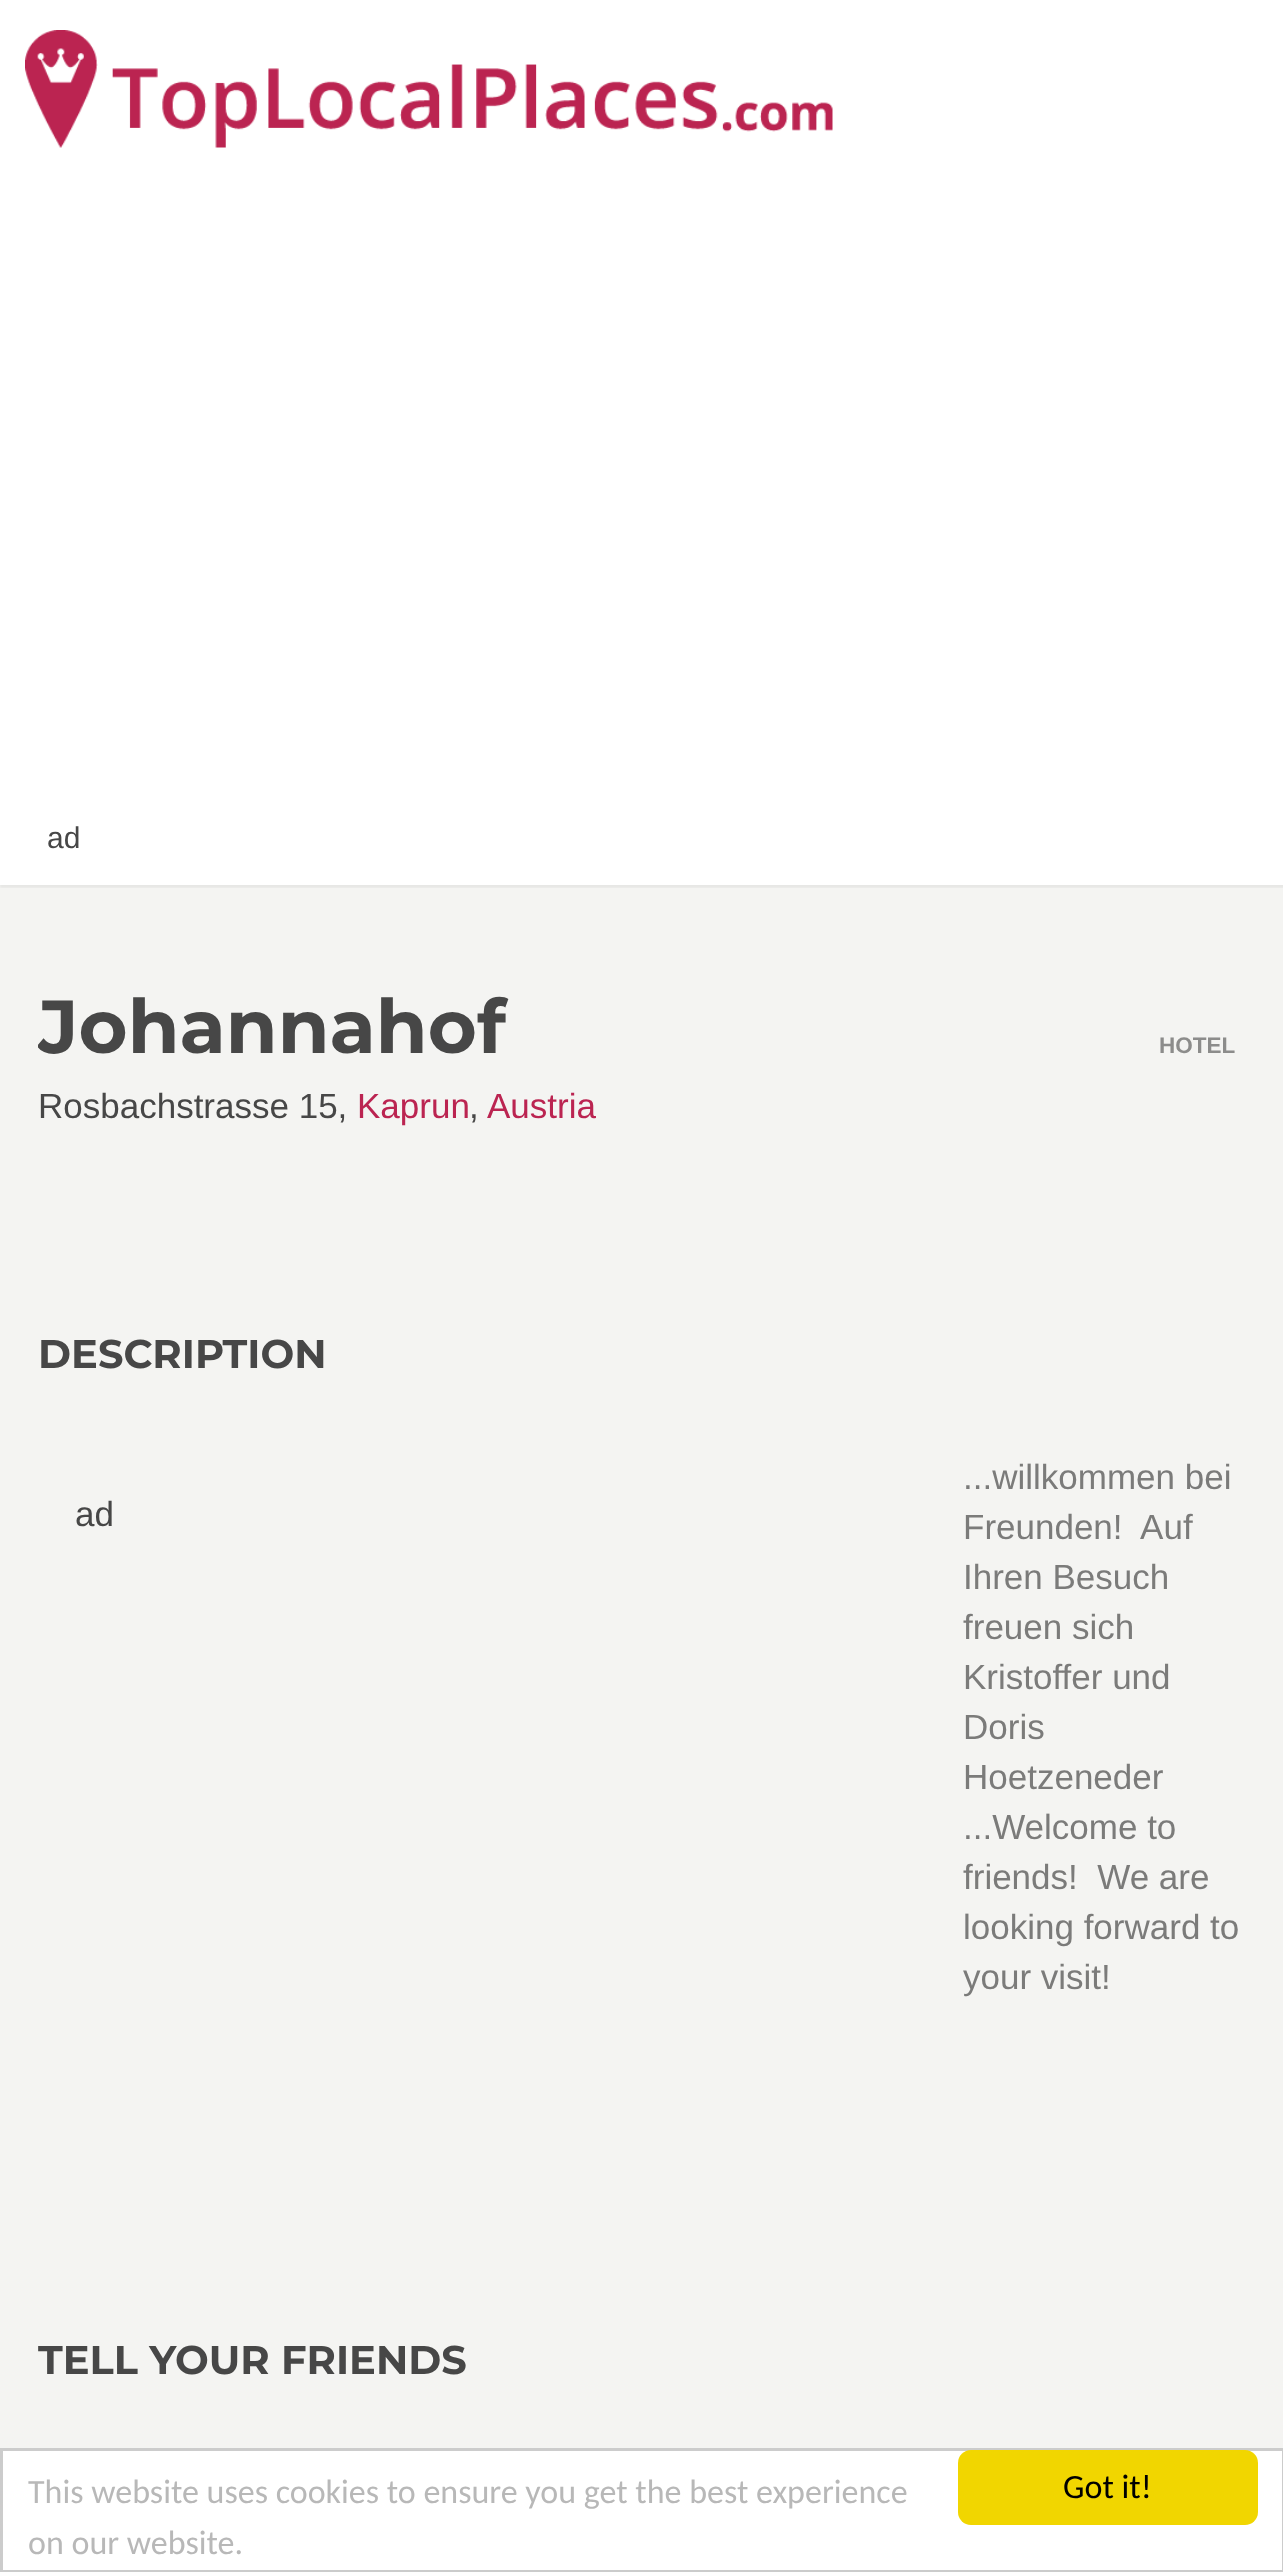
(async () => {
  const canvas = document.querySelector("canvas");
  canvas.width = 1283;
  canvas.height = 2572;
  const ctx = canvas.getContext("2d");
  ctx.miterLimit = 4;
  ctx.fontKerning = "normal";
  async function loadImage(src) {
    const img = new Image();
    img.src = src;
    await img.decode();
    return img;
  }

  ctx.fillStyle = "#ffffff";
  ctx.fillRect(0, 0, 1283, 2572);
  ctx.fillStyle = "#f4f4f2";
  ctx.fillRect(0, 885, 1283, 1563);
  ctx.save();
  ctx.beginPath();
  ctx.rect(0, 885, 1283, 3);
  ctx.clip();
  ctx.fillStyle = "rgba(0, 0, 0, 0.05)";
  ctx.filter = "blur(1px)";
  ctx.beginPath();
  ctx.rect(0, 3, 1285, 885);
  ctx.fill();
  ctx.filter = "none";
  ctx.restore();
  ctx.drawImage(await loadImage("img/1.png"), 25, 30, 808, 118);
  ctx.strokeStyle = "#cccccc";
  ctx.lineWidth = 3;
  ctx.strokeRect(1.5, 2449.5, 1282, 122);
  ctx.fillStyle = "#f1d600";
  ctx.beginPath();
  ctx.roundRect(958, 2450, 300, 75, 13);
  ctx.fill();
  ctx.font = "30px Liberation Sans";
  ctx.fillStyle = "#474747";
  ctx.fillText("ad", 47, 848);
  ctx.save();
  ctx.beginPath();
  ctx.rect(38, 885, 1210, 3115);
  ctx.clip();
  ctx.font = "bold 75px Montserrat";
  ctx.fillText("Johannahof", 38, 1053);
  ctx.restore();
  ctx.font = "35px Liberation Sans";
  ctx.fillText("Rosbachstrasse 15,", 38, 1118);
  ctx.fillStyle = "#bb2451";
  ctx.fillText("Kaprun", 357, 1118);
  ctx.fillStyle = "#474747";
  ctx.fillText(",", 469, 1118);
  ctx.fillStyle = "#bb2451";
  ctx.fillText("Austria", 487, 1118);
  ctx.font = "bold 22.5px Liberation Sans";
  ctx.fillStyle = "#8c8c8b";
  ctx.fillText("HOTEL", 1159, 1053);
  ctx.font = "bold 40px Montserrat";
  ctx.fillStyle = "#474747";
  ctx.fillText("DESCRIPTION", 38, 1368);
  ctx.font = "35px Liberation Sans";
  ctx.fillText("ad", 75, 1526);
  ctx.fillStyle = "#7b7b7a";
  for (const [text, x, y] of [
    ["...willkommen bei", 963, 1489],
    ["Freunden!  Auf", 963, 1539],
    ["Ihren Besuch", 963, 1589],
    ["freuen sich", 963, 1639],
    ["Kristoffer und", 963, 1689],
    ["Doris", 963, 1739],
    ["Hoetzeneder", 963, 1789],
    ["...Welcome to", 963, 1839],
    ["friends!  We are", 963, 1889],
    ["looking forward to", 963, 1939],
    ["your visit!", 963, 1989],
  ]) {
    ctx.fillText(text, x, y);
  }
  ctx.save();
  ctx.beginPath();
  ctx.rect(38, 885, 1210, 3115);
  ctx.clip();
  ctx.font = "bold 40px Montserrat";
  ctx.fillStyle = "#474747";
  ctx.fillText("TELL YOUR FRIENDS", 38, 2374);
  ctx.restore();
  ctx.font = "34px Carlito";
  ctx.fillStyle = "#b8b8b8";
  ctx.fillText("This website uses cookies to ensure you get the best experience", 28, 2503);
  ctx.fillText("on our website.", 28, 2554);
  ctx.fillStyle = "#000000";
  ctx.fillText("Got it!", 1063, 2498);
})();
